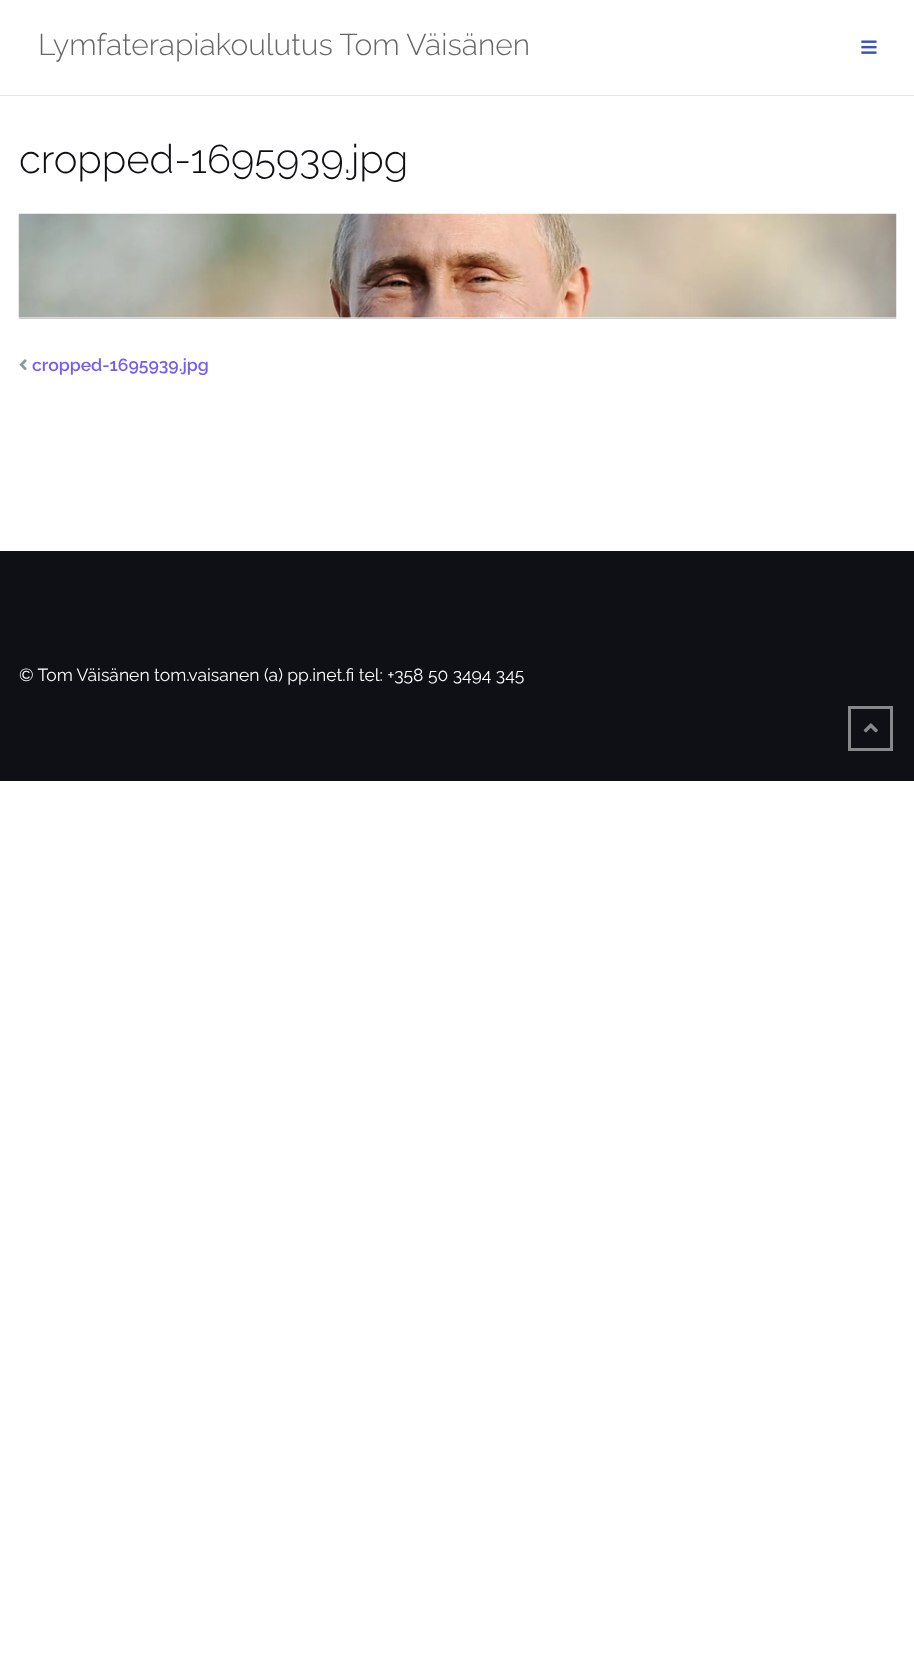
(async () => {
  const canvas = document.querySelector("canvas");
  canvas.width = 914;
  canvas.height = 1672;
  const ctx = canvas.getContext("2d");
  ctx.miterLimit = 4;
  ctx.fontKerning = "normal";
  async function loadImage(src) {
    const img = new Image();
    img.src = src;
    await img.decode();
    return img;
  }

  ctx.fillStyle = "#ffffff";
  ctx.fillRect(0, 0, 914, 1672);
  ctx.fillStyle = "#e6e6e6";
  ctx.fillRect(0, 95, 914, 1);
  ctx.drawImage(await loadImage("img/1.png"), 861, 40, 16, 14);
  ctx.drawImage(await loadImage("img/2.png"), 18, 213, 879, 105);
  ctx.fillStyle = "#cccccc";
  ctx.fillRect(19, 318, 877, 1);
  ctx.drawImage(await loadImage("img/3.png"), 19, 359, 8, 12);
  ctx.fillStyle = "#0e1015";
  ctx.fillRect(0, 551, 914, 230);
  ctx.strokeStyle = "#87888a";
  ctx.lineWidth = 3;
  ctx.strokeRect(849.5, 707.5, 42, 42);
  ctx.drawImage(await loadImage("img/4.png"), 863, 723, 15, 10);
  ctx.font = "300 30px Raleway";
  ctx.fillStyle = "#666666";
  ctx.fillText("Lymfaterapiakoulutus Tom Väisänen", 38, 55);
  ctx.font = "300 40px Raleway";
  ctx.fillStyle = "#0e1015";
  ctx.fillText("cropped-1695939.jpg", 19, 173);
  ctx.font = "600 17.5px Raleway";
  ctx.fillStyle = "#745cf9";
  ctx.fillText("cropped-1695939.jpg", 32, 371);
  ctx.font = "17.5px Raleway";
  ctx.fillStyle = "#fefefe";
  ctx.fillText("© Tom Väisänen tom.vaisanen (a) pp.inet.fi tel: +358 50 3494 345", 19, 681);
})();
